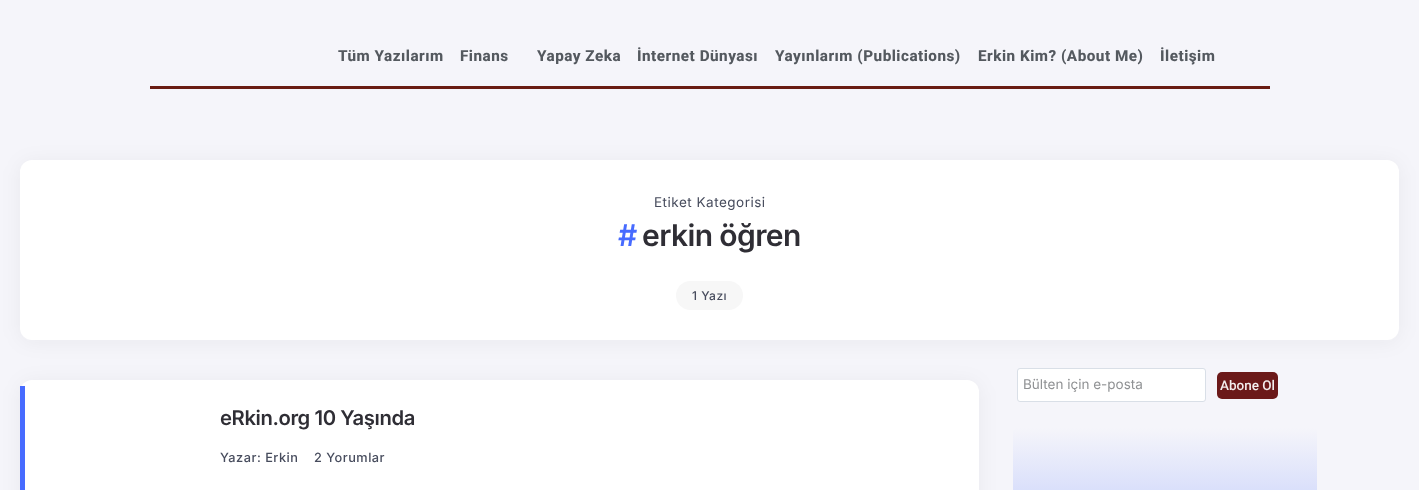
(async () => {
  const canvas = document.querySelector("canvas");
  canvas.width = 1419;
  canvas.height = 490;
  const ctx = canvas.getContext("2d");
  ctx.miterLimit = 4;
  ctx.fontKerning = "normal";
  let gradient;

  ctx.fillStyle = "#f5f5fa";
  ctx.fillRect(0, 0, 1419, 490);
  ctx.fillStyle = "#691c13";
  ctx.fillRect(150, 86, 1120, 3);
  ctx.fillStyle = "rgba(14, 14, 19, 0.05)";
  ctx.filter = "blur(10px)";
  ctx.beginPath();
  ctx.roundRect(20, 162, 1379, 180, 12);
  ctx.fill();
  ctx.filter = "none";
  ctx.fillStyle = "#ffffff";
  ctx.beginPath();
  ctx.roundRect(20, 160, 1379, 180, 12);
  ctx.fill();
  ctx.fillStyle = "#f7f7f7";
  ctx.beginPath();
  ctx.roundRect(676, 281, 67, 29, 14.5);
  ctx.fill();
  ctx.fillStyle = "#ffffff";
  ctx.beginPath();
  ctx.roundRect(1017.5, 368.5, 188, 33, 2.5);
  ctx.fill();
  ctx.strokeStyle = "#d9dfe7";
  ctx.stroke();
  ctx.fillStyle = "#6b1919";
  ctx.beginPath();
  ctx.roundRect(1217, 372, 61, 27, 5);
  ctx.fill();
  gradient = ctx.createLinearGradient(1165, 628, 1165, 428);
  gradient.addColorStop(0, "#9eb0fd");
  gradient.addColorStop(1, "#f5f5fa");
  ctx.fillStyle = gradient;
  ctx.beginPath();
  ctx.roundRect(1013, 428, 304, 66, 4);
  ctx.fill();
  ctx.fillStyle = "rgba(14, 14, 19, 0.05)";
  ctx.filter = "blur(10px)";
  ctx.beginPath();
  ctx.roundRect(20, 382, 959, 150, 12);
  ctx.fill();
  ctx.filter = "none";
  ctx.fillStyle = "#ffffff";
  ctx.beginPath();
  ctx.roundRect(20, 380, 959, 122, 12);
  ctx.fill();
  ctx.fillStyle = "#476bff";
  ctx.fillRect(20, 386, 5, 104);
  ctx.letterSpacing = "0.5px";
  ctx.font = "800 15.25px Roboto";
  ctx.fillStyle = "#54595f";
  for (const [text, x, y] of [
    ["Tüm Yazılarım", 338, 61],
    ["Finans", 460, 61],
    ["Yapay Zeka", 537, 61],
    ["İnternet Dünyası", 637, 61],
    ["Yayınlarım (Publications)", 775, 61],
    ["Erkin Kim? (About Me)", 978, 61],
    ["İletişim", 1160, 61],
  ]) {
    ctx.fillText(text, x, y);
  }
  ctx.font = "13.5px Inter";
  ctx.fillStyle = "#474c5d";
  ctx.fillText("Etiket Kategorisi", 654, 207);
  ctx.letterSpacing = "-0.6px";
  ctx.font = "600 30px Inter";
  ctx.fillStyle = "#476bff";
  ctx.fillText("#", 618, 246);
  ctx.fillStyle = "#2f2e35";
  ctx.fillText("erkin öğren", 642, 246);
  ctx.letterSpacing = "0.5px";
  ctx.font = "500 12px Inter";
  ctx.fillStyle = "#474c5d";
  ctx.fillText("1 Yazı", 692, 300);
  ctx.letterSpacing = "0px";
  ctx.font = "13.5px Inter";
  ctx.fillStyle = "#909294";
  ctx.fillText("Bülten için e-posta", 1023, 389);
  ctx.font = "500 13.5px Roboto";
  ctx.fillStyle = "#f3eded";
  ctx.fillText("Abone Ol", 1220, 390);
  ctx.letterSpacing = "-0.4px";
  ctx.font = "600 20.25px Inter";
  ctx.fillStyle = "#2f2e35";
  ctx.fillText("eRkin.org 10 Yaşında", 220, 425);
  ctx.letterSpacing = "0.5px";
  ctx.font = "500 12.75px Inter";
  ctx.fillStyle = "#474c5d";
  ctx.fillText("Yazar: Erkin", 220, 462);
  ctx.fillText("2 Yorumlar", 314, 462);
})();
